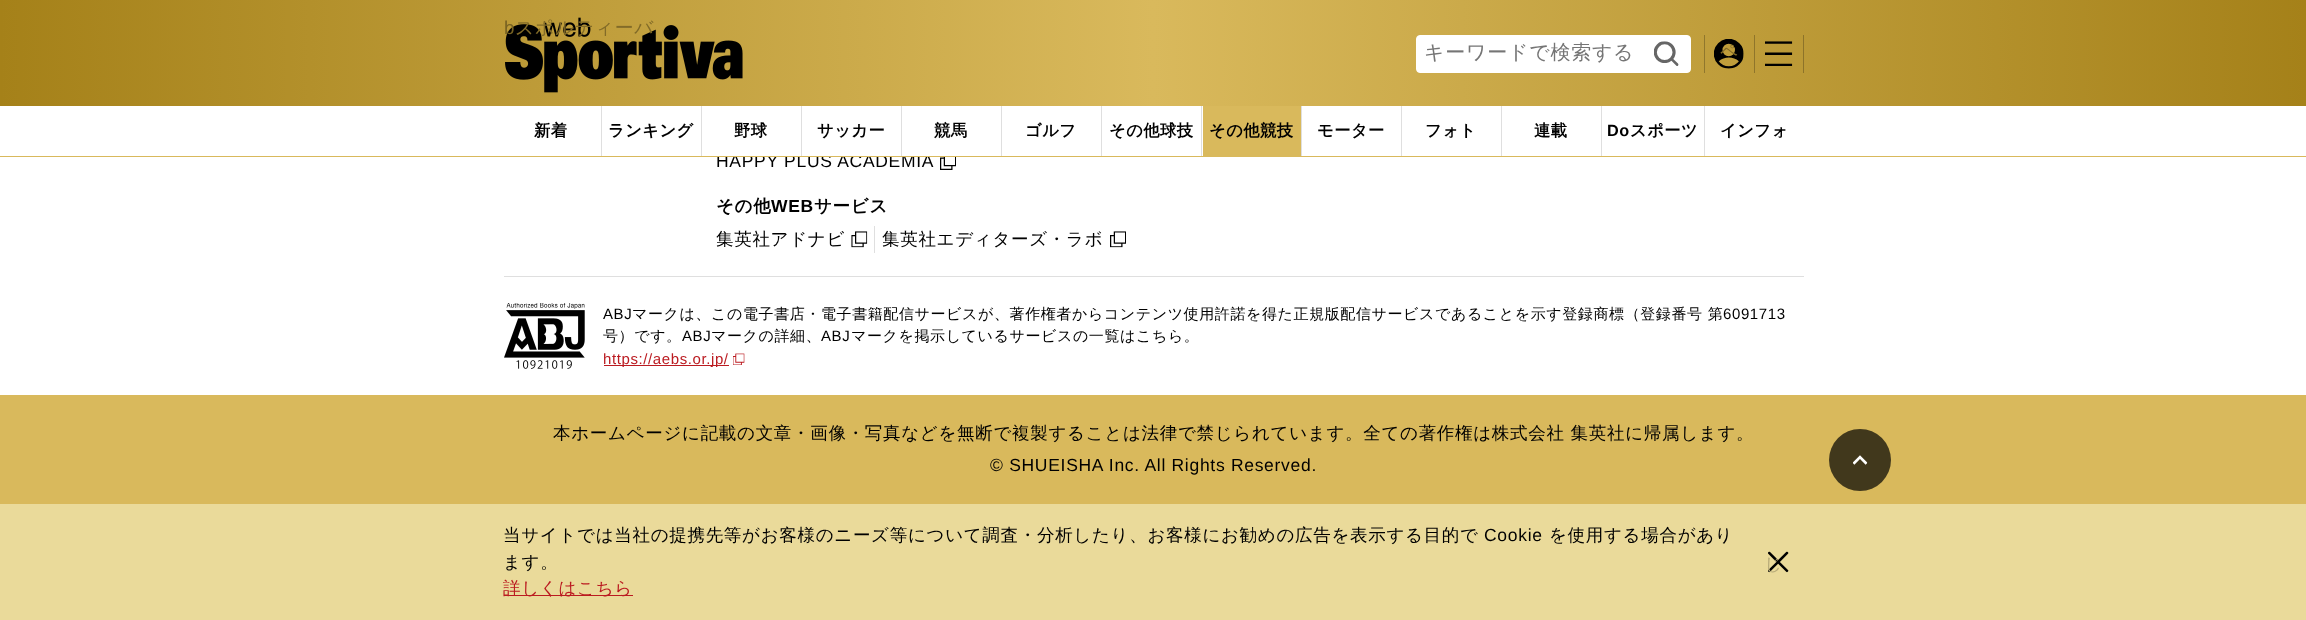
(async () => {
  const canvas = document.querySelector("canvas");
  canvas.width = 2306;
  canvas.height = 620;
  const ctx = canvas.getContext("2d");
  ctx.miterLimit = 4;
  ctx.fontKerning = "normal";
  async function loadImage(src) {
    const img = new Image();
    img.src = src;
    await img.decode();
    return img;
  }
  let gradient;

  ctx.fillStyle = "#ffffff";
  ctx.fillRect(0, 0, 2306, 620);
  gradient = ctx.createLinearGradient(0, 53, 2306, 53);
  gradient.addColorStop(0, "#a58119");
  gradient.addColorStop(0.5, "#d9b95c");
  gradient.addColorStop(1, "#a58119");
  ctx.fillStyle = gradient;
  ctx.fillRect(0, 0, 2306, 106);
  ctx.drawImage(await loadImage("img/1.png"), 505, 17, 238, 76);
  ctx.fillStyle = "#ffffff";
  ctx.beginPath();
  ctx.roundRect(1416.5, 35.5, 274, 37, 3.5);
  ctx.fill();
  ctx.strokeStyle = "#ffffff";
  ctx.stroke();
  ctx.drawImage(await loadImage("img/2.png"), 1654, 41, 25, 25);
  ctx.fillStyle = "#90772d";
  ctx.fillRect(1704, 35, 1, 38);
  ctx.drawImage(await loadImage("img/3.png"), 1714, 39, 30, 30);
  ctx.fillStyle = "#8f752b";
  ctx.fillRect(1754, 35, 1, 38);
  ctx.drawImage(await loadImage("img/4.png"), 1765, 41, 28, 25);
  for (const [x, y, w, h, color] of [
    [1803, 35, 1, 38, "#8d7329"],
    [601, 106, 1, 50, "#dfdfdf"],
    [701, 106, 1, 50, "#dfdfdf"],
    [1001, 106, 1, 50, "#dfdfdf"],
    [1101, 106, 1, 50, "#dfdfdf"],
    [1201, 106, 1, 50, "#dfdfdf"],
    [1203, 106, 98, 50, "#d9b95c"],
    [1301, 106, 1, 50, "#dfdfdf"],
    [1401, 106, 1, 50, "#dfdfdf"],
    [1501, 106, 1, 50, "#dfdfdf"],
    [1601, 106, 1, 50, "#dfdfdf"],
    [1704, 106, 1, 50, "#dfdfdf"],
    [0, 504, 2306, 116, "#eada9a"],
    [504, 595, 129, 1, "#bb1b21"],
  ]) {
    ctx.fillStyle = color;
    ctx.fillRect(x, y, w, h);
  }
  ctx.drawImage(await loadImage("img/5.png"), 1768, 551, 21, 22);
  ctx.drawImage(await loadImage("img/6.png"), 940, 157, 16, 13);
  ctx.drawImage(await loadImage("img/7.png"), 851, 231, 17, 17);
  ctx.fillStyle = "#dfdfdf";
  ctx.fillRect(874, 226, 1, 27);
  ctx.drawImage(await loadImage("img/8.png"), 1110, 231, 16, 17);
  ctx.fillRect(504, 276, 1300, 1);
  ctx.drawImage(await loadImage("img/9.png"), 504, 303, 81, 66);
  ctx.fillStyle = "#bb1b21";
  ctx.fillRect(604, 365, 125, 1);
  ctx.drawImage(await loadImage("img/10.png"), 733, 353, 12, 12);
  ctx.fillStyle = "#d9b95c";
  ctx.fillRect(0, 395, 2306, 109);
  ctx.fillStyle = "#41381c";
  ctx.beginPath();
  ctx.arc(1860, 460, 31, 0, Math.PI * 2);
  ctx.fill();
  ctx.drawImage(await loadImage("img/11.png"), 1853, 455, 15, 10);
  ctx.save();
  ctx.beginPath();
  ctx.rect(505, 18, 238, 75);
  ctx.clip();
  ctx.letterSpacing = "0.75px";
  ctx.font = "18.75px Liberation Sans";
  ctx.fillStyle = "#776222";
  ctx.fillText("b", 504, 34);
  ctx.restore();
  ctx.letterSpacing = "0.75px";
  ctx.font = "500 18.75px WenQuanYi Zen Hei";
  ctx.fillStyle = "#826b28";
  ctx.fillText("スポルティーバ", 515, 34);
  ctx.font = "500 20px WenQuanYi Zen Hei";
  ctx.fillStyle = "#757575";
  ctx.fillText("キーワードで検索する", 1424, 59);
  ctx.letterSpacing = "0.7px";
  ctx.font = "500 17.5px WenQuanYi Zen Hei";
  ctx.fillStyle = "#826b28";
  ctx.fillText("ペ", 1720, 57);
  ctx.letterSpacing = "0.5px";
  ctx.font = "bold 16.25px WenQuanYi Zen Hei";
  ctx.fillStyle = "#000000";
  for (const [text, x, y] of [
    ["新着", 534, 136],
    ["ランキング", 608, 136],
    ["野球", 734, 136],
    ["サッカー", 817, 136],
    ["競馬", 934, 136],
    ["ゴルフ", 1025, 136],
    ["その他球技", 1109, 136],
    ["その他競技", 1209, 136],
    ["モーター", 1317, 136],
    ["フォト", 1425, 136],
    ["連載", 1534, 136],
  ]) {
    ctx.fillText(text, x, y);
  }
  ctx.font = "bold 16.25px Liberation Sans";
  ctx.fillText("Do", 1607, 136);
  ctx.font = "bold 16.25px WenQuanYi Zen Hei";
  ctx.fillText("スポーツ", 1630, 136);
  ctx.fillText("インフォ", 1720, 136);
  ctx.letterSpacing = "0.7px";
  ctx.font = "500 17.5px WenQuanYi Zen Hei";
  ctx.fillText("当サイトでは当社の提携先等がお客様のニーズ等について調査・分析したり、お客様にお勧めの広告を表⽰する⽬的で", 503, 541);
  ctx.font = "17.5px Liberation Sans";
  ctx.fillText("Cookie", 1484, 541);
  ctx.font = "500 17.5px WenQuanYi Zen Hei";
  ctx.fillText("を使⽤する場合があり", 1549, 541);
  ctx.fillText("ます。", 503, 568);
  ctx.fillStyle = "#bb1b21";
  ctx.fillText("詳しくはこちら", 503, 594);
  ctx.fillStyle = "#b9ac7a";
  ctx.fillText("じ", 1764, 570);
  ctx.font = "17.5px Liberation Sans";
  ctx.fillStyle = "#000000";
  ctx.fillText("HAPPY PLUS ACADEMIA", 716, 167);
  for (const [x, y, w, h, color] of [
    [717, 154, 212, 2, "#ffffff"],
    [901, 106, 1, 50, "#dfdfdf"],
    [801, 106, 1, 50, "#dfdfdf"],
    [0, 156, 2306, 1, "#d9b95c"],
  ]) {
    ctx.fillStyle = color;
    ctx.fillRect(x, y, w, h);
  }
  ctx.font = "bold 17.5px WenQuanYi Zen Hei";
  ctx.fillStyle = "#000000";
  ctx.fillText("その他", 716, 212);
  ctx.font = "bold 17.5px Liberation Sans";
  ctx.fillText("WEB", 771, 212);
  ctx.font = "bold 17.5px WenQuanYi Zen Hei";
  ctx.fillText("サービス", 814, 212);
  ctx.font = "500 17.5px WenQuanYi Zen Hei";
  ctx.fillText("集英社アドナビ", 716, 245);
  ctx.fillText("集英社エディターズ・ラボ", 882, 245);
  ctx.letterSpacing = "0.6px";
  ctx.font = "15px Liberation Sans";
  ctx.fillText("ABJ", 603, 319);
  ctx.font = "500 15px WenQuanYi Zen Hei";
  ctx.fillText("マークは、この電子書店・電子書籍配信サービスが、著作権者からコンテンツ使用許諾を得た正規版配信サービスであることを示す登録商標（登録番号 第", 632, 319);
  ctx.font = "15px Liberation Sans";
  ctx.fillText("6091713", 1723, 319);
  ctx.font = "500 15px WenQuanYi Zen Hei";
  ctx.fillText("号）です。", 603, 341);
  ctx.font = "15px Liberation Sans";
  ctx.fillText("ABJ", 682, 341);
  ctx.font = "500 15px WenQuanYi Zen Hei";
  ctx.fillText("マークの詳細、", 711, 341);
  ctx.font = "15px Liberation Sans";
  ctx.fillText("ABJ", 821, 341);
  ctx.font = "500 15px WenQuanYi Zen Hei";
  ctx.fillText("マークを掲示しているサービスの一覧はこちら。", 851, 341);
  ctx.font = "15px Liberation Sans";
  ctx.fillStyle = "#bb1b21";
  ctx.fillText("https://aebs.or.jp/", 603, 364);
  ctx.letterSpacing = "0.7px";
  ctx.font = "500 17.5px WenQuanYi Zen Hei";
  ctx.fillStyle = "#000000";
  ctx.fillText("本ホームページに記載の文章・画像・写真などを無断で複製することは法律で禁じられています。全ての著作権は株式会社 集英社に帰属します。", 553, 439);
  ctx.font = "17.5px Liberation Sans";
  ctx.fillText("© SHUEISHA Inc. All Rights Reserved.", 990, 471);
})();
